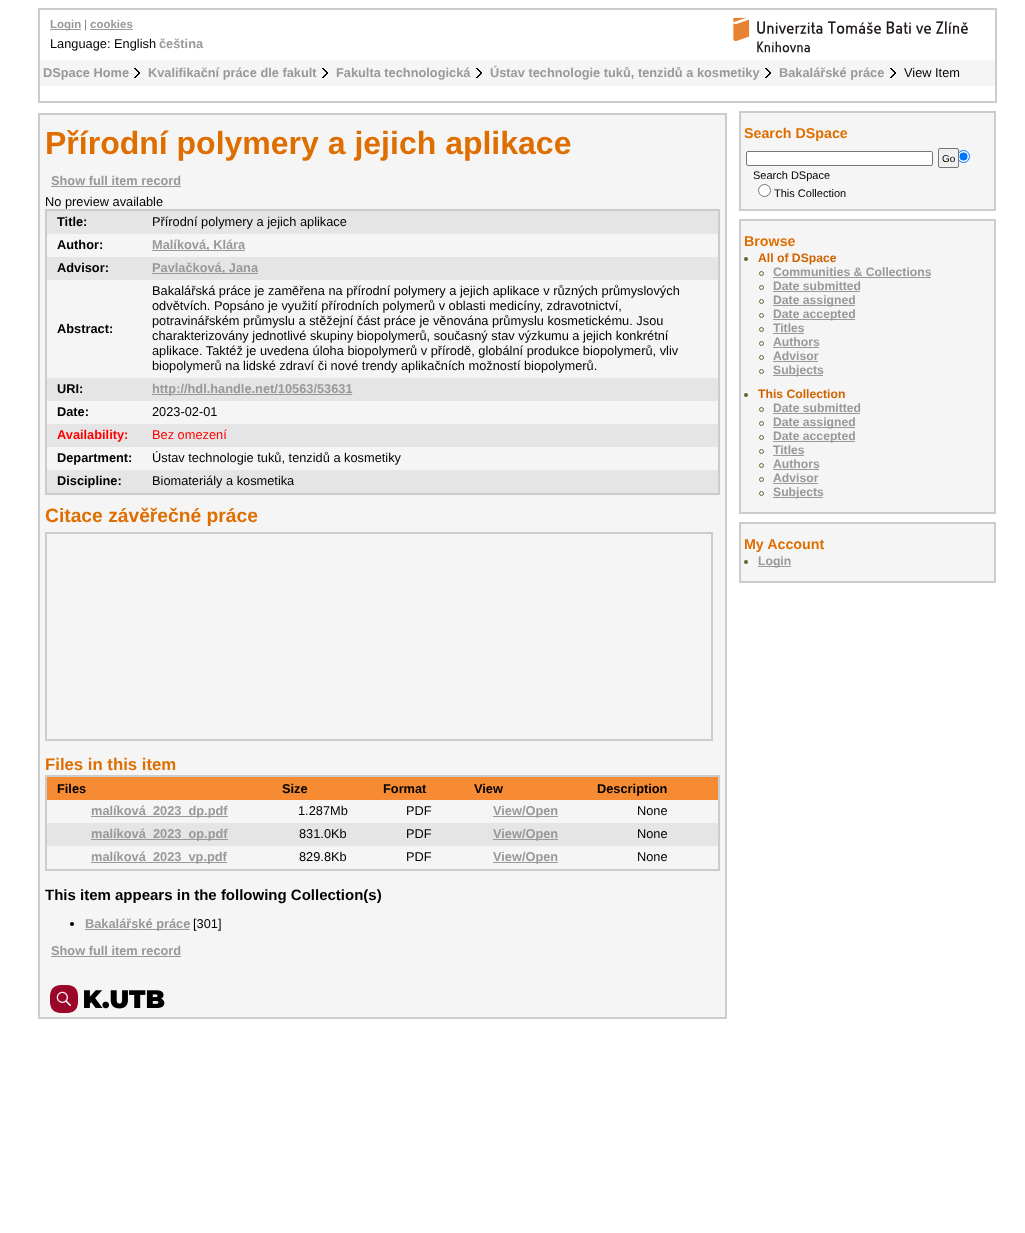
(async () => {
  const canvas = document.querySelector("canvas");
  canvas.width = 1025;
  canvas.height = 1233;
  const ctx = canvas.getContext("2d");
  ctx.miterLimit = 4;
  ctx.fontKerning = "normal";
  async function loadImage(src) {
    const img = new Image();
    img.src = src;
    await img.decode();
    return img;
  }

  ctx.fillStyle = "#ffffff";
  ctx.fillRect(0, 0, 1025, 1233);
  ctx.strokeStyle = "#cccccc";
  ctx.lineWidth = 2;
  ctx.strokeRect(39, 9, 957, 93);
  ctx.fillStyle = "#999999";
  ctx.fillRect(50, 29, 31, 1);
  ctx.fillRect(90, 29, 43, 1);
  ctx.drawImage(await loadImage("img/1.png"), 733, 17, 235, 36);
  ctx.fillStyle = "#f5f5f5";
  ctx.fillRect(40, 60, 955, 26);
  ctx.drawImage(await loadImage("img/2.png"), 134, 68, 6, 10);
  ctx.drawImage(await loadImage("img/2.png"), 322, 68, 6, 10);
  ctx.drawImage(await loadImage("img/2.png"), 476, 68, 6, 10);
  ctx.drawImage(await loadImage("img/2.png"), 765, 68, 6, 10);
  ctx.drawImage(await loadImage("img/2.png"), 890, 68, 6, 10);
  ctx.beginPath();
  ctx.rect(39, 114, 687, 904);
  ctx.fill();
  ctx.stroke();
  ctx.fillStyle = "#999999";
  ctx.fillRect(51, 186, 130, 1);
  ctx.strokeRect(46, 210, 673, 284);
  for (const [x, y, w, h, color] of [
    [47, 211, 671, 23, "#e5e5e5"],
    [152, 250, 93, 1, "#999999"],
    [47, 257, 671, 23, "#e5e5e5"],
    [152, 273, 106, 1, "#999999"],
    [47, 378, 671, 23, "#e5e5e5"],
    [152, 394, 200, 1, "#999999"],
    [47, 424, 671, 23, "#e5e5e5"],
    [47, 470, 671, 23, "#e5e5e5"],
  ]) {
    ctx.fillStyle = color;
    ctx.fillRect(x, y, w, h);
  }
  ctx.strokeRect(46, 533, 666, 207);
  ctx.strokeRect(46, 776, 673, 94);
  for (const [x, y, w, h, color] of [
    [47, 777, 671, 23, "#f68b33"],
    [91, 816, 137, 1, "#999999"],
    [493, 816, 65, 1, "#999999"],
    [47, 823, 671, 23, "#e5e5e5"],
    [91, 839, 137, 1, "#999999"],
    [493, 839, 65, 1, "#999999"],
    [91, 862, 136, 1, "#999999"],
    [493, 862, 65, 1, "#999999"],
  ]) {
    ctx.fillStyle = color;
    ctx.fillRect(x, y, w, h);
  }
  ctx.fillStyle = "#000000";
  ctx.beginPath();
  ctx.arc(72, 924, 2, 0, Math.PI * 2);
  ctx.fill();
  ctx.fillStyle = "#999999";
  ctx.fillRect(85, 929, 105, 1);
  ctx.fillRect(51, 956, 130, 1);
  ctx.drawImage(await loadImage("img/3.png"), 50, 985, 115, 28);
  ctx.fillStyle = "#f5f5f5";
  ctx.beginPath();
  ctx.rect(740, 112, 255, 98);
  ctx.fill();
  ctx.stroke();
  ctx.fillStyle = "#ffffff";
  ctx.beginPath();
  ctx.roundRect(746.5, 151.5, 186, 14, 1.5);
  ctx.fill();
  ctx.strokeStyle = "#767676";
  ctx.lineWidth = 1;
  ctx.stroke();
  ctx.beginPath();
  ctx.arc(963.5, 156.5, 6, 0, Math.PI * 2);
  ctx.fill();
  ctx.strokeStyle = "#0075ff";
  ctx.stroke();
  ctx.fillStyle = "#efefef";
  ctx.beginPath();
  ctx.roundRect(938.5, 148.5, 20, 19, 1.5);
  ctx.fill();
  ctx.strokeStyle = "#767676";
  ctx.stroke();
  ctx.fillStyle = "#0075ff";
  ctx.beginPath();
  ctx.arc(963.5, 156.5, 4, 0, Math.PI * 2);
  ctx.fill();
  ctx.fillStyle = "#ffffff";
  ctx.beginPath();
  ctx.arc(764.5, 190.5, 6, 0, Math.PI * 2);
  ctx.fill();
  ctx.stroke();
  ctx.fillStyle = "#f5f5f5";
  ctx.beginPath();
  ctx.rect(740, 220, 255, 293);
  ctx.fill();
  ctx.strokeStyle = "#cccccc";
  ctx.lineWidth = 2;
  ctx.stroke();
  ctx.fillStyle = "#646432";
  ctx.beginPath();
  ctx.arc(746, 259, 2, 0, Math.PI * 2);
  ctx.fill();
  ctx.beginPath();
  ctx.arc(761.5, 273.5, 2, 0, Math.PI * 2);
  ctx.strokeStyle = "#646432";
  ctx.lineWidth = 1;
  ctx.stroke();
  ctx.fillStyle = "#999999";
  ctx.fillRect(773, 277, 158, 1);
  ctx.beginPath();
  ctx.arc(761.5, 287.5, 2, 0, Math.PI * 2);
  ctx.stroke();
  ctx.fillRect(773, 291, 87, 1);
  ctx.beginPath();
  ctx.arc(761.5, 301.5, 2, 0, Math.PI * 2);
  ctx.stroke();
  ctx.fillRect(773, 305, 82, 1);
  ctx.beginPath();
  ctx.arc(761.5, 315.5, 2, 0, Math.PI * 2);
  ctx.stroke();
  ctx.fillRect(773, 319, 82, 1);
  ctx.beginPath();
  ctx.arc(761.5, 329.5, 2, 0, Math.PI * 2);
  ctx.stroke();
  ctx.fillRect(773, 333, 31, 1);
  ctx.beginPath();
  ctx.arc(761.5, 343.5, 2, 0, Math.PI * 2);
  ctx.stroke();
  ctx.fillRect(773, 347, 46, 1);
  ctx.beginPath();
  ctx.arc(761.5, 357.5, 2, 0, Math.PI * 2);
  ctx.stroke();
  ctx.fillRect(773, 361, 45, 1);
  ctx.beginPath();
  ctx.arc(761.5, 371.5, 2, 0, Math.PI * 2);
  ctx.stroke();
  ctx.fillRect(773, 375, 50, 1);
  ctx.fillStyle = "#646432";
  ctx.beginPath();
  ctx.arc(746, 395, 2, 0, Math.PI * 2);
  ctx.fill();
  ctx.beginPath();
  ctx.arc(761.5, 409.5, 2, 0, Math.PI * 2);
  ctx.stroke();
  ctx.fillStyle = "#999999";
  ctx.fillRect(773, 413, 87, 1);
  ctx.beginPath();
  ctx.arc(761.5, 423.5, 2, 0, Math.PI * 2);
  ctx.stroke();
  ctx.fillRect(773, 427, 82, 1);
  ctx.beginPath();
  ctx.arc(761.5, 437.5, 2, 0, Math.PI * 2);
  ctx.stroke();
  ctx.fillRect(773, 441, 82, 1);
  ctx.beginPath();
  ctx.arc(761.5, 451.5, 2, 0, Math.PI * 2);
  ctx.stroke();
  ctx.fillRect(773, 455, 31, 1);
  ctx.beginPath();
  ctx.arc(761.5, 465.5, 2, 0, Math.PI * 2);
  ctx.stroke();
  ctx.fillRect(773, 469, 46, 1);
  ctx.beginPath();
  ctx.arc(761.5, 479.5, 2, 0, Math.PI * 2);
  ctx.stroke();
  ctx.fillRect(773, 483, 45, 1);
  ctx.beginPath();
  ctx.arc(761.5, 493.5, 2, 0, Math.PI * 2);
  ctx.stroke();
  ctx.fillRect(773, 497, 50, 1);
  ctx.fillStyle = "#f5f5f5";
  ctx.beginPath();
  ctx.rect(740, 523, 255, 59);
  ctx.fill();
  ctx.strokeStyle = "#cccccc";
  ctx.lineWidth = 2;
  ctx.stroke();
  ctx.fillStyle = "#646432";
  ctx.beginPath();
  ctx.arc(746, 562, 2, 0, Math.PI * 2);
  ctx.fill();
  ctx.fillStyle = "#999999";
  ctx.fillRect(758, 566, 33, 1);
  ctx.font = "bold 11.5px Liberation Sans";
  ctx.fillText("Login", 50, 28);
  ctx.font = "11.5px Liberation Sans";
  ctx.fillStyle = "#808080";
  ctx.fillText("|", 84, 28);
  ctx.font = "bold 11.5px Liberation Sans";
  ctx.fillStyle = "#999999";
  ctx.fillText("cookies", 90, 28);
  ctx.font = "12.8px Liberation Sans";
  ctx.fillStyle = "#000000";
  ctx.fillText("Language: English", 50, 48);
  ctx.font = "bold 12.8px Liberation Sans";
  ctx.fillStyle = "#999999";
  for (const [text, x, y] of [
    ["čeština", 159, 48],
    ["DSpace Home", 43, 77],
    ["Kvalifikační práce dle fakult", 148, 77],
    ["Fakulta technologická", 336, 77],
    ["Ústav technologie tuků, tenzidů a kosmetiky", 490, 77],
    ["Bakalářské práce", 779, 77],
  ]) {
    ctx.fillText(text, x, y);
  }
  ctx.font = "12.8px Liberation Sans";
  ctx.fillStyle = "#000000";
  ctx.fillText("View Item", 904, 77);
  ctx.font = "bold 32px Liberation Sans";
  ctx.fillStyle = "#df6e00";
  ctx.fillText("Přírodní polymery a jejich aplikace", 45, 154);
  ctx.font = "bold 12.8px Liberation Sans";
  ctx.fillStyle = "#999999";
  ctx.fillText("Show full item record", 51, 185);
  ctx.font = "12.8px Liberation Sans";
  ctx.fillStyle = "#000000";
  ctx.fillText("No preview available", 45, 206);
  ctx.font = "bold 12.8px Liberation Sans";
  ctx.fillText("Title:", 57, 226);
  ctx.font = "12.8px Liberation Sans";
  ctx.fillText("Přírodní polymery a jejich aplikace", 152, 226);
  ctx.font = "bold 12.8px Liberation Sans";
  ctx.fillText("Author:", 57, 249);
  ctx.fillStyle = "#999999";
  ctx.fillText("Malíková, Klára", 152, 249);
  ctx.fillStyle = "#000000";
  ctx.fillText("Advisor:", 57, 272);
  ctx.fillStyle = "#999999";
  ctx.fillText("Pavlačková, Jana", 152, 272);
  ctx.fillStyle = "#000000";
  ctx.fillText("Abstract:", 57, 333);
  ctx.font = "12.8px Liberation Sans";
  for (const [text, x, y] of [
    ["Bakalářská práce je zaměřena na přírodní polymery a jejich aplikace v různých průmyslových", 152, 295],
    ["odvětvích. Popsáno je využití přírodních polymerů v oblasti medicíny, zdravotnictví,", 152, 310],
    ["potravinářském průmyslu a stěžejní část práce je věnována průmyslu kosmetickému. Jsou", 152, 325],
    ["charakterizovány jednotlivé skupiny biopolymerů, současný stav výzkumu a jejich konkrétní", 152, 340],
    ["aplikace. Taktéž je uvedena úloha biopolymerů v přírodě, globální produkce biopolymerů, vliv", 152, 355],
    ["biopolymerů na lidské zdraví či nové trendy aplikačních možností biopolymerů.", 152, 370],
  ]) {
    ctx.fillText(text, x, y);
  }
  ctx.font = "bold 12.8px Liberation Sans";
  ctx.fillText("URI:", 57, 393);
  ctx.fillStyle = "#999999";
  ctx.fillText("http://hdl.handle.net/10563/53631", 152, 393);
  ctx.fillStyle = "#000000";
  ctx.fillText("Date:", 57, 416);
  ctx.font = "12.8px Liberation Sans";
  ctx.fillText("2023-02-01", 152, 416);
  ctx.font = "bold 12.8px Liberation Sans";
  ctx.fillStyle = "#ff0000";
  ctx.fillText("Availability:", 57, 439);
  ctx.font = "12.8px Liberation Sans";
  ctx.fillText("Bez omezení", 152, 439);
  ctx.font = "bold 12.8px Liberation Sans";
  ctx.fillStyle = "#000000";
  ctx.fillText("Department:", 57, 462);
  ctx.font = "12.8px Liberation Sans";
  ctx.fillText("Ústav technologie tuků, tenzidů a kosmetiky", 152, 462);
  ctx.font = "bold 12.8px Liberation Sans";
  ctx.fillText("Discipline:", 57, 485);
  ctx.font = "12.8px Liberation Sans";
  ctx.fillText("Biomateriály a kosmetika", 152, 485);
  ctx.font = "bold 19.25px Liberation Sans";
  ctx.fillStyle = "#df6e00";
  ctx.fillText("Citace závěřečné práce", 45, 522);
  ctx.font = "bold 16.75px Liberation Sans";
  ctx.fillText("Files in this item", 45, 770);
  ctx.font = "bold 12.8px Liberation Sans";
  ctx.fillStyle = "#000000";
  for (const [text, x, y] of [
    ["Files", 57, 793],
    ["Size", 282, 793],
    ["Format", 383, 793],
    ["View", 474, 793],
    ["Description", 597, 793],
  ]) {
    ctx.fillText(text, x, y);
  }
  ctx.fillStyle = "#999999";
  ctx.fillText("malíková_2023_dp.pdf", 91, 815);
  ctx.font = "12.8px Liberation Sans";
  ctx.fillStyle = "#000000";
  ctx.fillText("1.287Mb", 298, 815);
  ctx.fillText("PDF", 406, 815);
  ctx.font = "bold 12.8px Liberation Sans";
  ctx.fillStyle = "#999999";
  ctx.fillText("View/Open", 493, 815);
  ctx.font = "12.8px Liberation Sans";
  ctx.fillStyle = "#000000";
  ctx.fillText("None", 637, 815);
  ctx.font = "bold 12.8px Liberation Sans";
  ctx.fillStyle = "#999999";
  ctx.fillText("malíková_2023_op.pdf", 91, 838);
  ctx.font = "12.8px Liberation Sans";
  ctx.fillStyle = "#000000";
  ctx.fillText("831.0Kb", 299, 838);
  ctx.fillText("PDF", 406, 838);
  ctx.font = "bold 12.8px Liberation Sans";
  ctx.fillStyle = "#999999";
  ctx.fillText("View/Open", 493, 838);
  ctx.font = "12.8px Liberation Sans";
  ctx.fillStyle = "#000000";
  ctx.fillText("None", 637, 838);
  ctx.font = "bold 12.8px Liberation Sans";
  ctx.fillStyle = "#999999";
  ctx.fillText("malíková_2023_vp.pdf", 91, 861);
  ctx.font = "12.8px Liberation Sans";
  ctx.fillStyle = "#000000";
  ctx.fillText("829.8Kb", 299, 861);
  ctx.fillText("PDF", 406, 861);
  ctx.font = "bold 12.8px Liberation Sans";
  ctx.fillStyle = "#999999";
  ctx.fillText("View/Open", 493, 861);
  ctx.font = "12.8px Liberation Sans";
  ctx.fillStyle = "#000000";
  ctx.fillText("None", 637, 861);
  ctx.save();
  ctx.beginPath();
  ctx.rect(45, 167, 675, 797);
  ctx.clip();
  ctx.font = "bold 15px Liberation Sans";
  ctx.fillText("This item appears in the following Collection(s)", 45, 900);
  ctx.restore();
  ctx.font = "bold 12.8px Liberation Sans";
  ctx.fillStyle = "#999999";
  ctx.fillText("Bakalářské práce", 85, 928);
  ctx.font = "12.8px Liberation Sans";
  ctx.fillStyle = "#000000";
  ctx.fillText("[301]", 193, 928);
  ctx.font = "bold 12.8px Liberation Sans";
  ctx.fillStyle = "#999999";
  ctx.fillText("Show full item record", 51, 955);
  ctx.font = "bold 14.25px Liberation Sans";
  ctx.fillStyle = "#df6e00";
  ctx.fillText("Search DSpace", 744, 138);
  ctx.font = "10px Liberation Sans";
  ctx.fillStyle = "#000000";
  ctx.fillText("Go", 942, 162);
  ctx.font = "11px Liberation Sans";
  ctx.fillText("Search DSpace", 753, 179);
  ctx.fillText("This Collection", 774, 197);
  ctx.font = "bold 14.25px Liberation Sans";
  ctx.fillStyle = "#df6e00";
  ctx.fillText("Browse", 744, 246);
  ctx.font = "bold 12.2px Liberation Sans";
  ctx.fillStyle = "#d26400";
  ctx.fillText("All of DSpace", 758, 262);
  ctx.fillStyle = "#999999";
  for (const [text, x, y] of [
    ["Communities & Collections", 773, 276],
    ["Date submitted", 773, 290],
    ["Date assigned", 773, 304],
    ["Date accepted", 773, 318],
    ["Titles", 773, 332],
    ["Authors", 773, 346],
    ["Advisor", 773, 360],
    ["Subjects", 773, 374],
  ]) {
    ctx.fillText(text, x, y);
  }
  ctx.fillStyle = "#d26400";
  ctx.fillText("This Collection", 758, 398);
  ctx.fillStyle = "#999999";
  for (const [text, x, y] of [
    ["Date submitted", 773, 412],
    ["Date assigned", 773, 426],
    ["Date accepted", 773, 440],
    ["Titles", 773, 454],
    ["Authors", 773, 468],
    ["Advisor", 773, 482],
    ["Subjects", 773, 496],
  ]) {
    ctx.fillText(text, x, y);
  }
  ctx.font = "bold 14.25px Liberation Sans";
  ctx.fillStyle = "#df6e00";
  ctx.fillText("My Account", 744, 549);
  ctx.font = "bold 12.2px Liberation Sans";
  ctx.fillStyle = "#999999";
  ctx.fillText("Login", 758, 565);
})();
